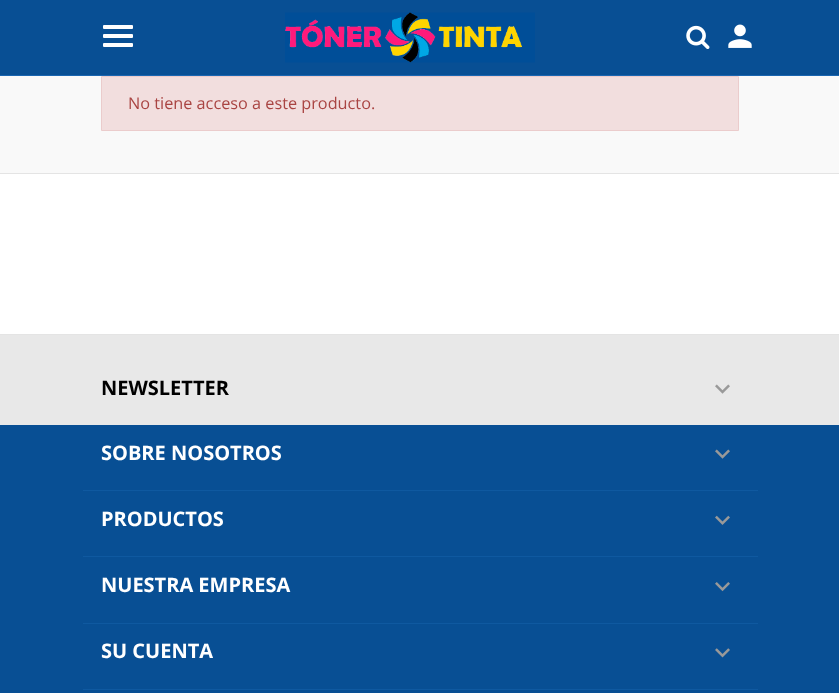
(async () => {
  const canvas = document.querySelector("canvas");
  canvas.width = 839;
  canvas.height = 693;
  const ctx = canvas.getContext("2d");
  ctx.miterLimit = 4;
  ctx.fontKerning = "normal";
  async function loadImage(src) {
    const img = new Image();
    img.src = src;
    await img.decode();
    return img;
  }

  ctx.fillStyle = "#f9f9f9";
  ctx.fillRect(0, 0, 839, 693);
  ctx.fillStyle = "#084f94";
  ctx.fillRect(0, 0, 839, 75);
  ctx.fillStyle = "#1a66b1";
  ctx.fillRect(0, 75, 839, 1);
  ctx.fillStyle = "#ffffff";
  ctx.beginPath();
  ctx.roundRect(103, 34, 30, 4, 1);
  ctx.fill();
  ctx.beginPath();
  ctx.roundRect(103, 25, 30, 4, 1);
  ctx.fill();
  ctx.beginPath();
  ctx.roundRect(103, 43, 30, 4, 1);
  ctx.fill();
  ctx.drawImage(await loadImage("img/1.png"), 285, 12, 250, 51);
  ctx.drawImage(await loadImage("img/2.png"), 686, 25, 24, 24);
  ctx.drawImage(await loadImage("img/3.png"), 728, 24, 24, 24);
  ctx.fillStyle = "#f2dede";
  ctx.beginPath();
  ctx.rect(101.5, 76.5, 637, 54);
  ctx.fill();
  ctx.strokeStyle = "#ebcccc";
  ctx.stroke();
  for (const [x, y, w, h, color] of [
    [0, 174, 839, 160, "#ffffff"],
    [0, 173, 839, 1, "#e4e4e4"],
    [0, 334, 839, 1, "#e4e4e4"],
    [0, 335, 839, 90, "#e8e8e8"],
  ]) {
    ctx.fillStyle = color;
    ctx.fillRect(x, y, w, h);
  }
  ctx.drawImage(await loadImage("img/4.png"), 715, 384, 15, 10);
  ctx.fillStyle = "#084f94";
  ctx.fillRect(0, 425, 839, 268);
  ctx.fillStyle = "#0f59a0";
  ctx.fillRect(83, 490, 675, 1);
  ctx.drawImage(await loadImage("img/5.png"), 715, 449, 15, 10);
  ctx.fillRect(83, 556, 675, 1);
  ctx.drawImage(await loadImage("img/6.png"), 715, 515, 15, 10);
  ctx.fillRect(83, 623, 675, 1);
  ctx.drawImage(await loadImage("img/7.png"), 715, 582, 15, 10);
  ctx.fillRect(83, 689, 675, 1);
  ctx.drawImage(await loadImage("img/8.png"), 715, 648, 15, 10);
  ctx.font = "16.25px Open Sans";
  ctx.fillStyle = "#a94442";
  ctx.fillText("No tiene acceso a este producto.", 128, 109);
  ctx.font = "bold 20px Open Sans";
  ctx.fillStyle = "#000000";
  ctx.fillText("NEWSLETTER", 101, 395);
  ctx.fillStyle = "#ffffff";
  for (const [text, x, y] of [
    ["SOBRE NOSOTROS", 101, 460],
    ["PRODUCTOS", 101, 526],
    ["NUESTRA EMPRESA", 101, 592],
    ["SU CUENTA", 101, 658],
  ]) {
    ctx.fillText(text, x, y);
  }
})();
